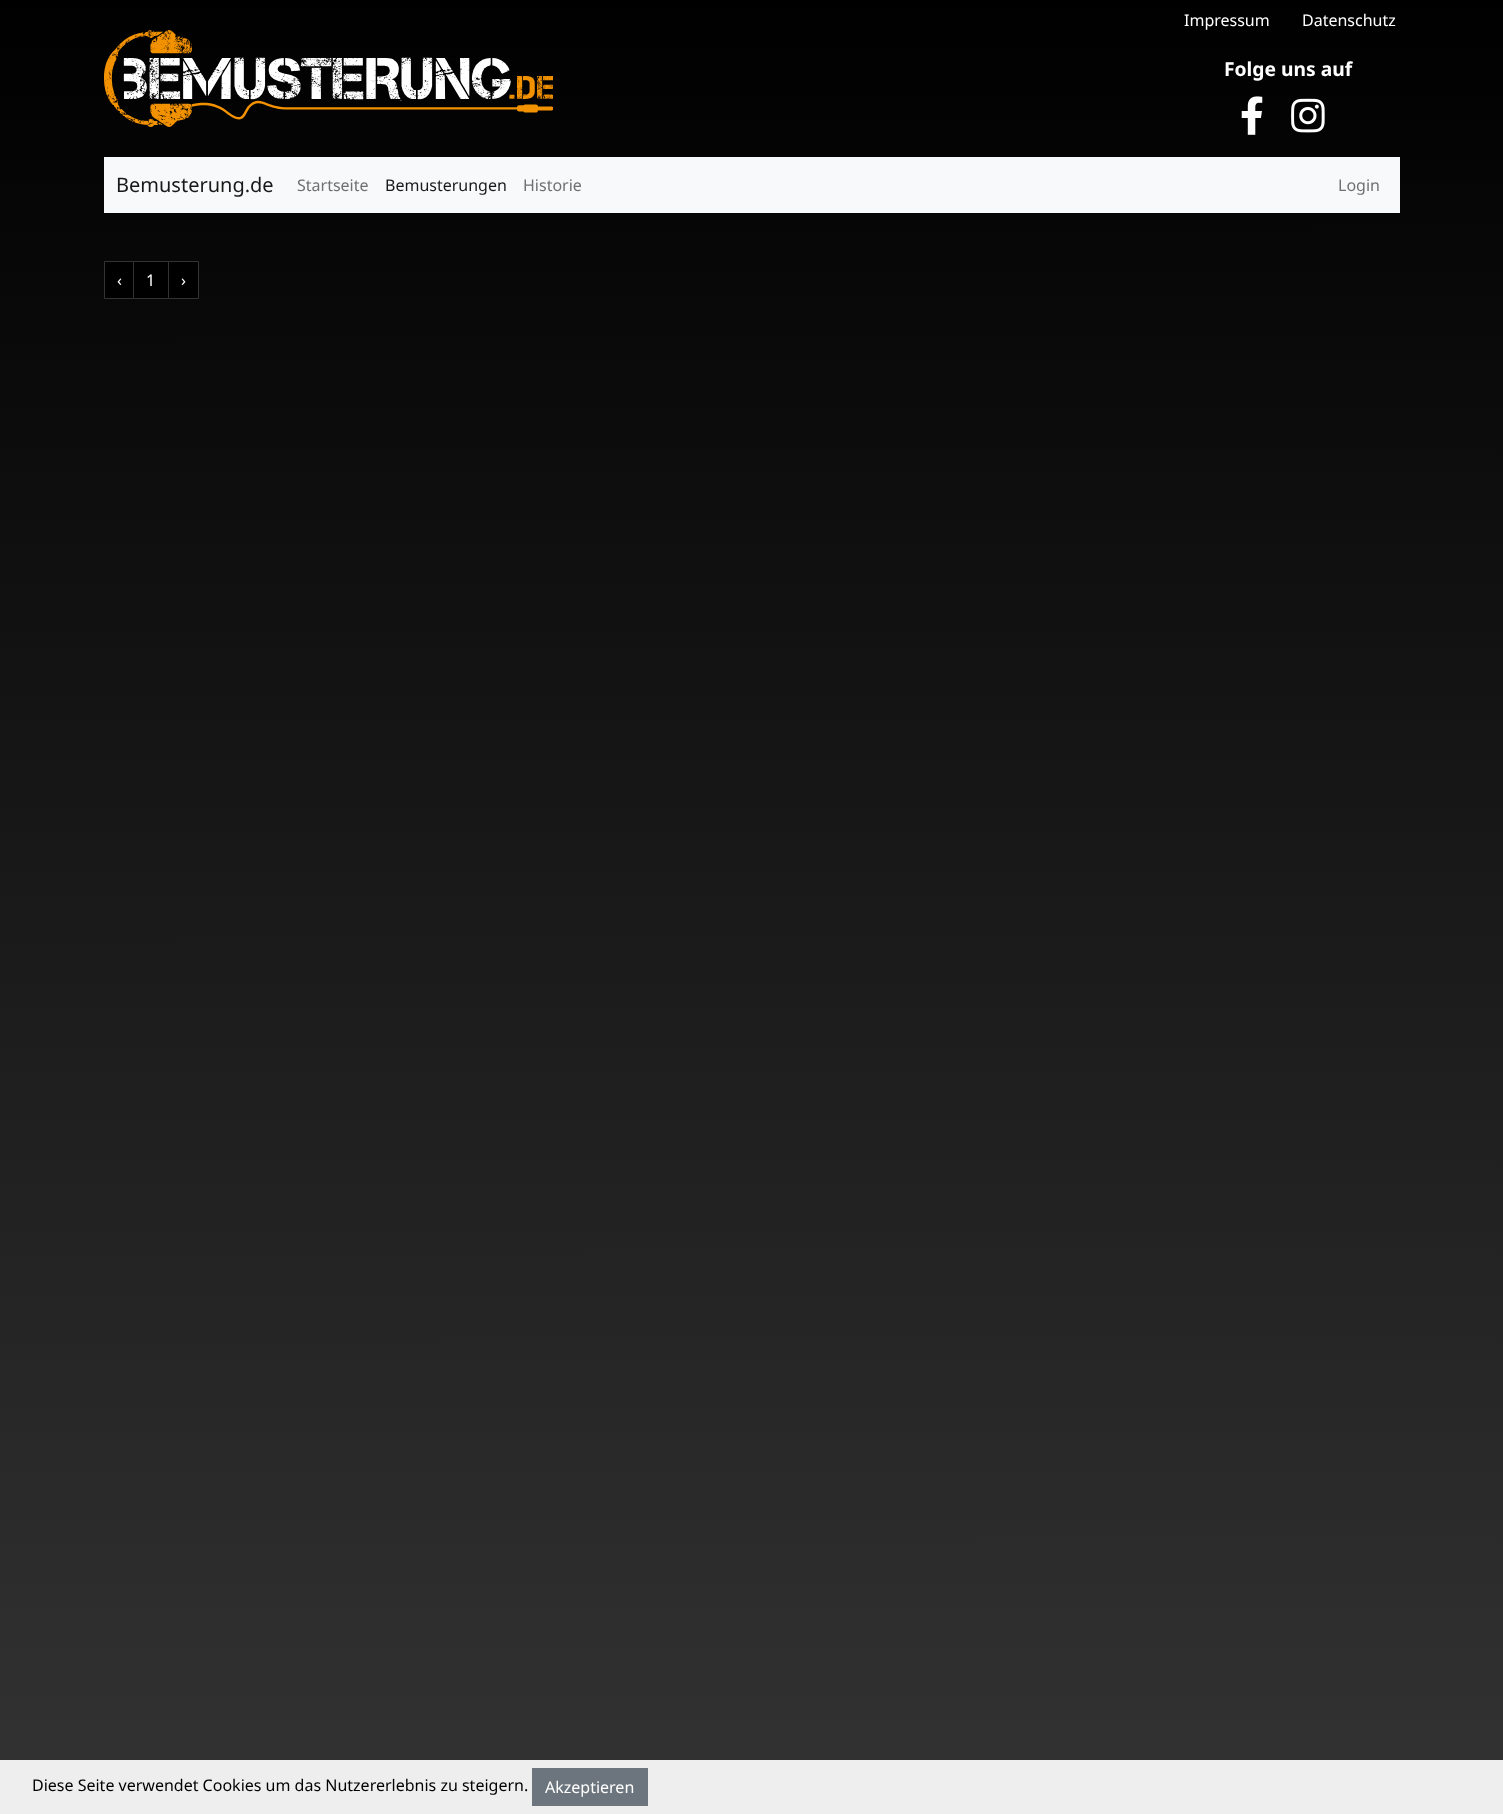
(async () => {
  const canvas = document.querySelector("canvas");
  canvas.width = 1503;
  canvas.height = 1814;
  const ctx = canvas.getContext("2d");
  ctx.miterLimit = 4;
  ctx.fontKerning = "normal";
  async function loadImage(src) {
    const img = new Image();
    img.src = src;
    await img.decode();
    return img;
  }
  let gradient;

  ctx.fillStyle = "#ffffff";
  ctx.fillRect(0, 0, 1503, 1814);
  gradient = ctx.createLinearGradient(751, 0, 752, 1814);
  gradient.addColorStop(0, "#000000");
  gradient.addColorStop(1, "#333333");
  ctx.fillStyle = gradient;
  ctx.fillRect(0, 0, 1503, 1760);
  ctx.drawImage(await loadImage("img/1.png"), 104, 30, 449, 97);
  ctx.drawImage(await loadImage("img/2.png"), 1241, 96, 22, 39);
  ctx.drawImage(await loadImage("img/3.png"), 1291, 98, 34, 35);
  ctx.fillStyle = "#f8f9fa";
  ctx.fillRect(104, 157, 1296, 56);
  ctx.fillStyle = "#000000";
  ctx.beginPath();
  ctx.rect(104.5, 261.5, 29, 37);
  ctx.fill();
  ctx.strokeStyle = "#333333";
  ctx.stroke();
  ctx.beginPath();
  ctx.rect(133.5, 261.5, 35, 37);
  ctx.fill();
  ctx.stroke();
  ctx.beginPath();
  ctx.rect(168.5, 261.5, 30, 37);
  ctx.fill();
  ctx.stroke();
  ctx.fillStyle = "#eeeeee";
  ctx.fillRect(0, 1760, 1503, 54);
  ctx.fillStyle = "#6c757d";
  ctx.fillRect(532, 1768, 116, 38);
  ctx.font = "16px Noto Sans";
  ctx.fillStyle = "#ffffff";
  ctx.fillText("Impressum", 1184, 26);
  ctx.fillText("Datenschutz", 1302, 26);
  ctx.font = "bold 19.25px Noto Sans";
  ctx.fillText("Folge uns auf", 1224, 76);
  ctx.font = "20px Noto Sans";
  ctx.fillStyle = "#191919";
  ctx.fillText("Bemusterung.de", 116, 192);
  ctx.font = "16px Noto Sans";
  ctx.fillStyle = "#707071";
  ctx.fillText("Startseite", 297, 191);
  ctx.fillStyle = "#191919";
  ctx.fillText("Bemusterungen", 385, 191);
  ctx.fillStyle = "#707071";
  ctx.fillText("Historie", 523, 191);
  ctx.fillText("Login", 1338, 191);
  ctx.fillStyle = "#ffffff";
  for (const [text, x, y] of [
    ["‹", 117, 286],
    ["1", 146, 286],
    ["›", 181, 286],
  ]) {
    ctx.fillText(text, x, y);
  }
  ctx.fillStyle = "#000000";
  ctx.fillText("Diese Seite verwendet Cookies um das Nutzererlebnis zu steigern.", 32, 1791);
  ctx.fillStyle = "#ffffff";
  ctx.fillText("Akzeptieren", 545, 1793);
})();
